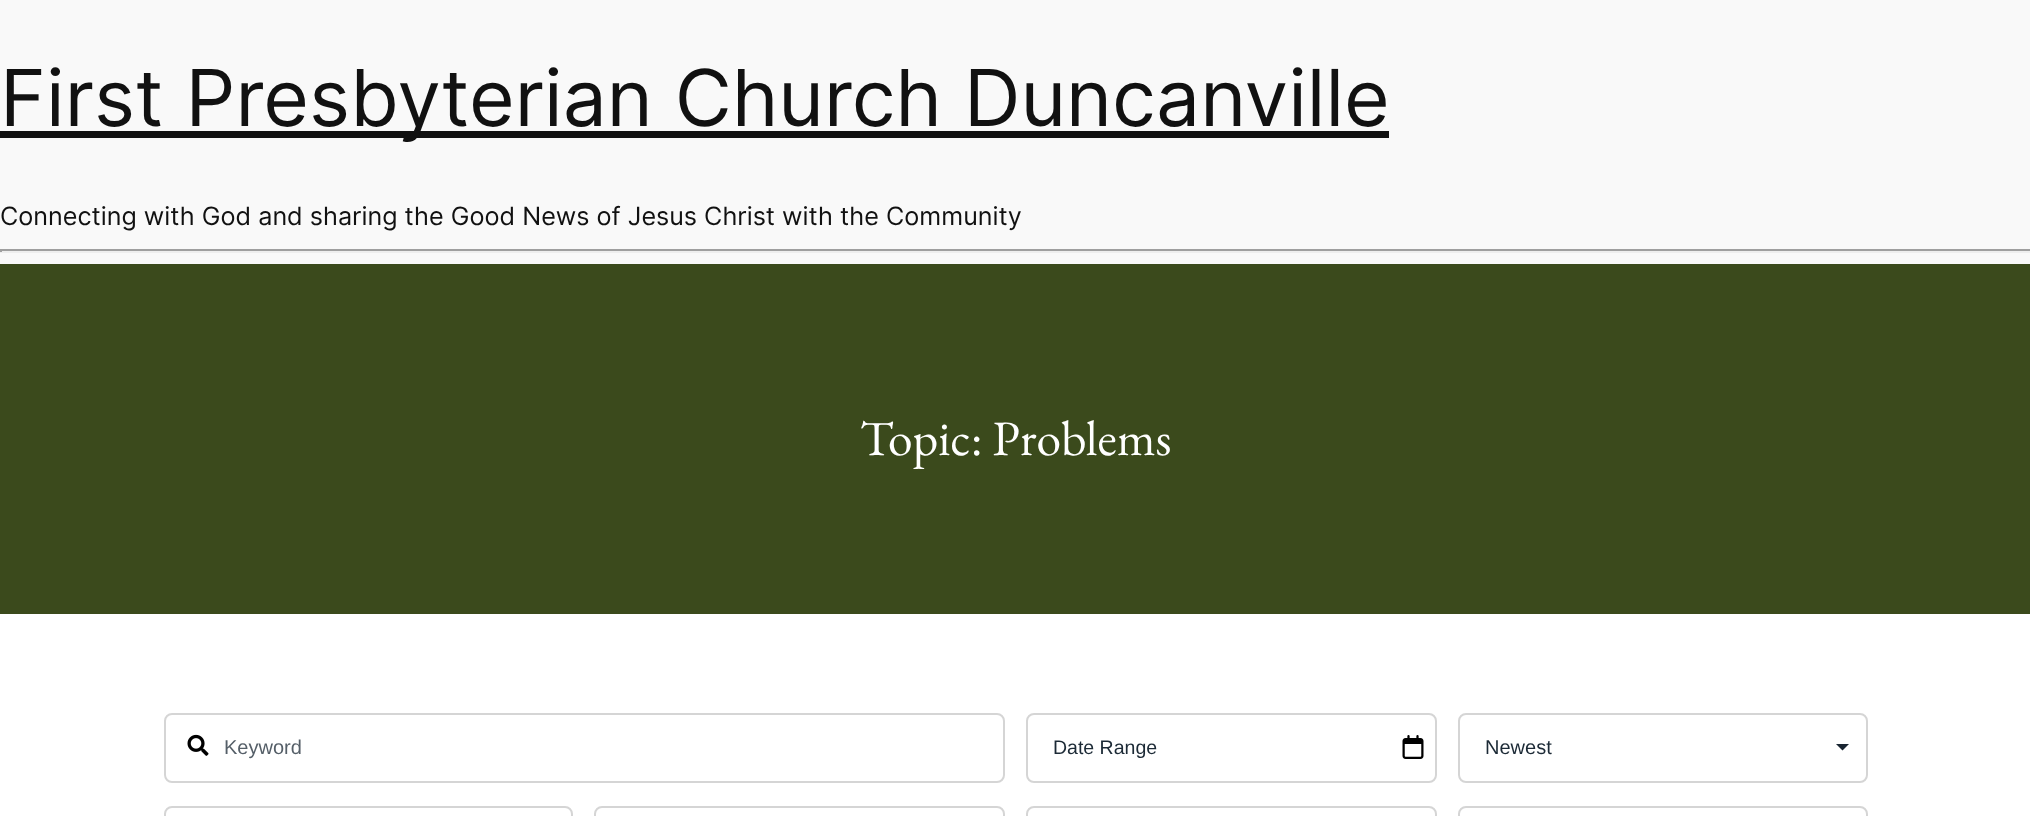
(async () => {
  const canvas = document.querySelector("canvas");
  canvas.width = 2030;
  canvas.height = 816;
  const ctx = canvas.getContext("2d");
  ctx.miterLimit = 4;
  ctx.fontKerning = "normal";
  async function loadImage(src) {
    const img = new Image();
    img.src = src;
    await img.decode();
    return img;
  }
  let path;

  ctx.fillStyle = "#f9f9f9";
  ctx.fillRect(0, 0, 2030, 816);
  for (const [x, y, w, h, color] of [
    [0, 131, 1389, 7, "#111111"],
    [0, 249, 2030, 2, "#9f9f9f"],
    [0, 251, 2030, 2, "#eeeeee"],
    [0, 249, 2, 3, "#9f9f9f"],
    [0, 614, 2030, 202, "#ffffff"],
    [0, 264, 2030, 350, "#3b4a1c"],
  ]) {
    ctx.fillStyle = color;
    ctx.fillRect(x, y, w, h);
  }
  ctx.beginPath();
  ctx.roundRect(165, 714, 839, 68, 7);
  ctx.strokeStyle = "#d5d5d5";
  ctx.lineWidth = 2;
  ctx.stroke();
  ctx.drawImage(await loadImage("img/1.png"), 187, 734, 22, 22);
  ctx.drawImage(await loadImage("img/2.png"), 1402, 735, 22, 24);
  ctx.beginPath();
  ctx.roundRect(1027, 714, 409, 68, 7);
  ctx.stroke();
  ctx.fillStyle = "#192531";
  path = new Path2D("M1836 744H1849L1842.5 750.5Z");
  ctx.fill(path);
  ctx.beginPath();
  ctx.roundRect(1459, 714, 408, 68, 7);
  ctx.stroke();
  ctx.beginPath();
  ctx.roundRect(165, 807, 407, 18, 7);
  ctx.stroke();
  ctx.beginPath();
  ctx.roundRect(595, 807, 409, 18, 7);
  ctx.stroke();
  ctx.beginPath();
  ctx.roundRect(1027, 807, 409, 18, 7);
  ctx.stroke();
  ctx.beginPath();
  ctx.roundRect(1459, 807, 408, 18, 7);
  ctx.stroke();
  ctx.font = "78.5px Inter";
  ctx.fillStyle = "#111111";
  ctx.fillText("First Presbyterian Church Duncanville", 0, 126);
  ctx.font = "25.2px Inter";
  ctx.fillText("Connecting with God and sharing the Good News of Jesus Christ with the Community", 0, 225);
  ctx.font = "49.5px EB Garamond";
  ctx.fillStyle = "#ffffff";
  ctx.fillText("Topic: Problems", 860, 455);
  ctx.font = "20px Liberation Sans";
  ctx.fillStyle = "#555f68";
  ctx.fillText("Keyword", 224, 754);
  ctx.font = "19.5px Liberation Sans";
  ctx.fillStyle = "#1c2a36";
  ctx.fillText("Date Range", 1053, 754);
  ctx.font = "20px Liberation Sans";
  ctx.fillText("Newest", 1485, 754);
})();
